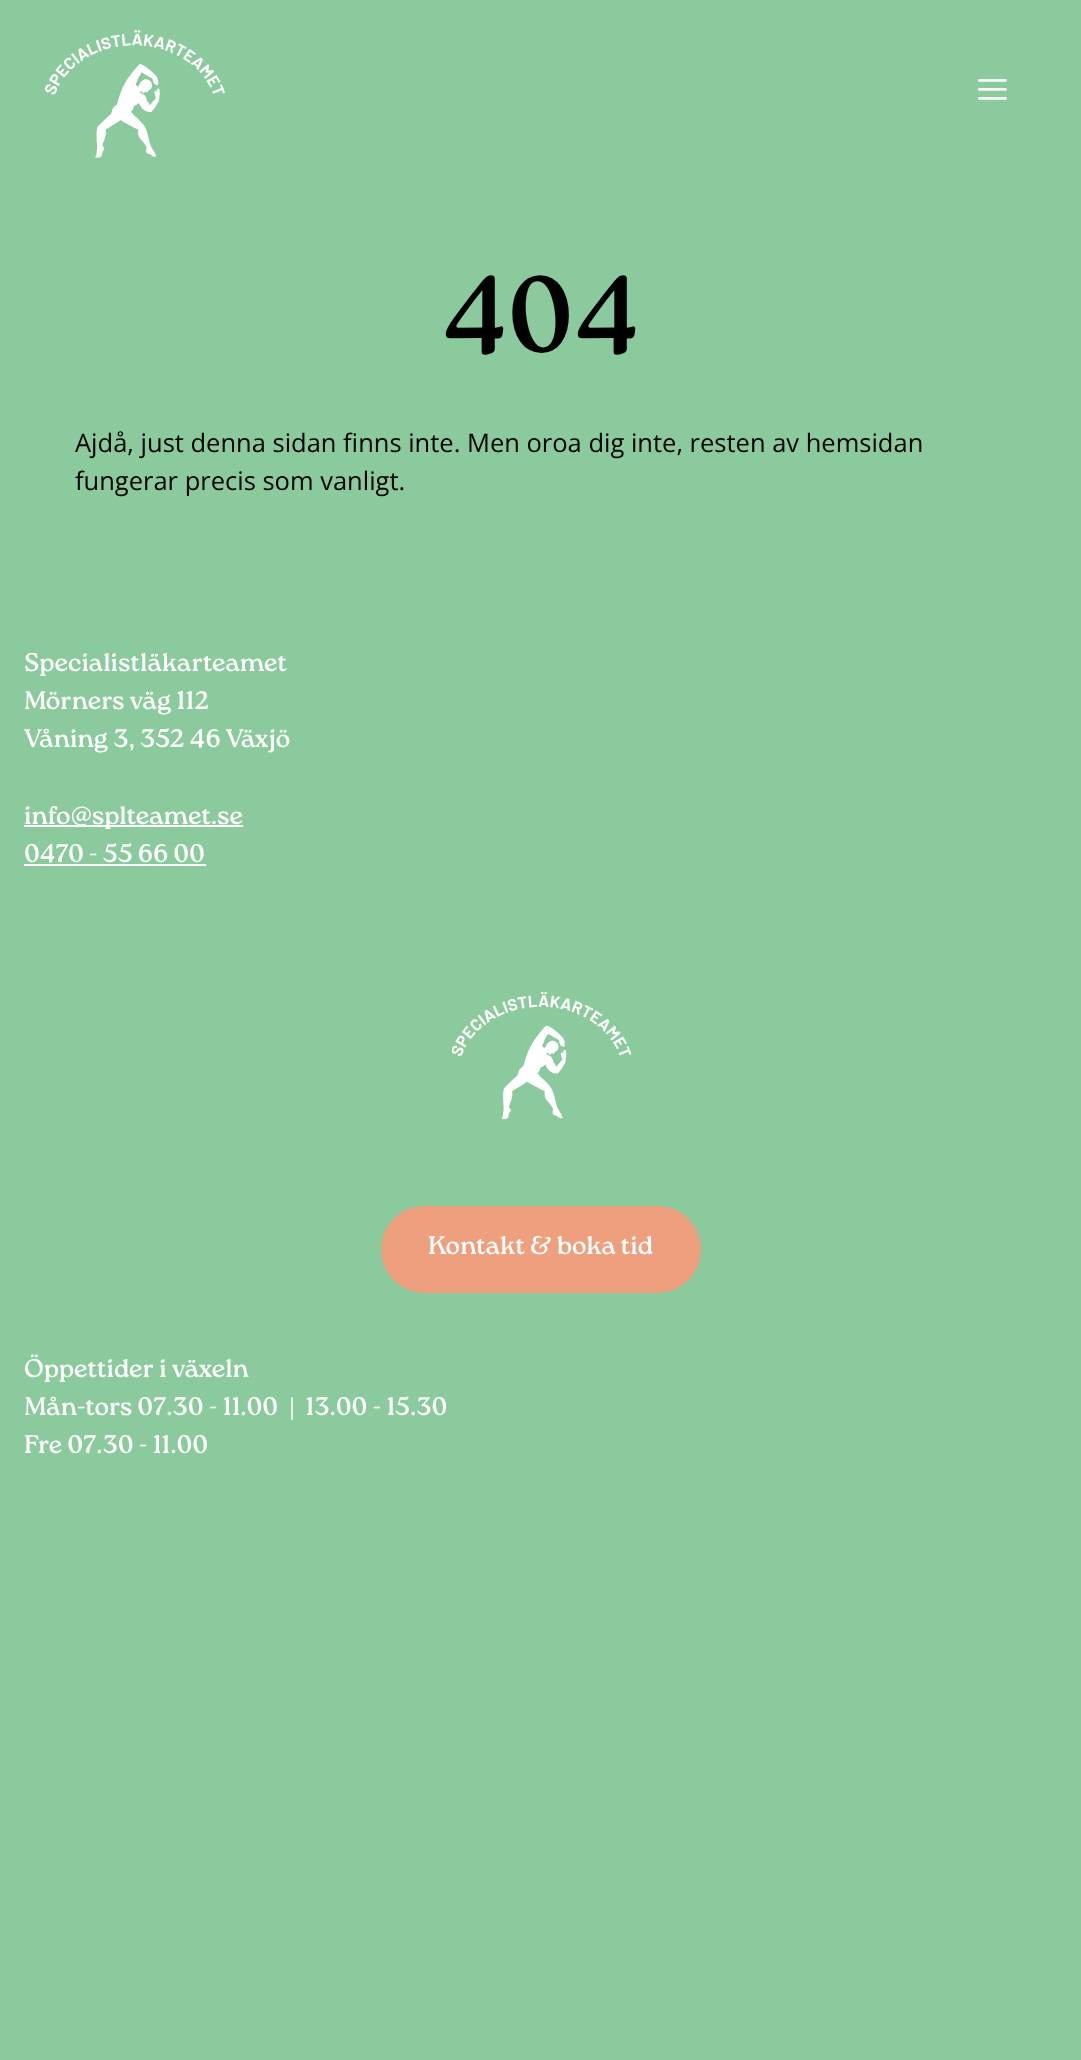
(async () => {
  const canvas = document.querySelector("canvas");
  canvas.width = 1081;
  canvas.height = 2060;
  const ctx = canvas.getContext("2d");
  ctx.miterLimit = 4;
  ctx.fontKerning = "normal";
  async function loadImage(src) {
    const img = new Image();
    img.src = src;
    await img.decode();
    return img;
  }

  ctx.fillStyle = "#8bca9d";
  ctx.fillRect(0, 0, 1081, 2060);
  ctx.drawImage(await loadImage("img/1.png"), 45, 30, 180, 128);
  ctx.drawImage(await loadImage("img/2.png"), 978, 79, 29, 21);
  ctx.fillStyle = "#ffffff";
  ctx.fillRect(24, 825, 219, 2);
  ctx.fillRect(24, 864, 182, 2);
  ctx.drawImage(await loadImage("img/3.png"), 452, 992, 179, 128);
  ctx.fillStyle = "#ee9f7e";
  ctx.beginPath();
  ctx.roundRect(381, 1206, 320, 87, 43.5);
  ctx.fill();
  ctx.font = "108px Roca";
  ctx.fillStyle = "#000000";
  ctx.fillText("404", 442, 352);
  ctx.font = "25.5px Open Sans";
  ctx.fillText("Ajdå, just denna sidan finns inte. Men oroa dig inte, resten av hemsidan", 75, 452);
  ctx.fillText("fungerar precis som vanligt.", 75, 490);
  ctx.font = "25.5px Roca";
  ctx.fillStyle = "#ffffff";
  for (const [text, x, y] of [
    ["Specialistläkarteamet", 24, 671],
    ["Mörners väg 112", 24, 709],
    ["Våning 3, 352 46 Växjö", 24, 747],
    ["info@splteamet.se", 24, 824],
    ["0470 - 55 66 00", 24, 862],
    ["Kontakt & boka tid", 428, 1254],
    ["Öppettider i växeln", 24, 1377],
    ["Mån-tors 07.30 - 11.00  |  13.00 - 15.30", 24, 1415],
    ["Fre 07.30 - 11.00", 24, 1453],
  ]) {
    ctx.fillText(text, x, y);
  }
})();
